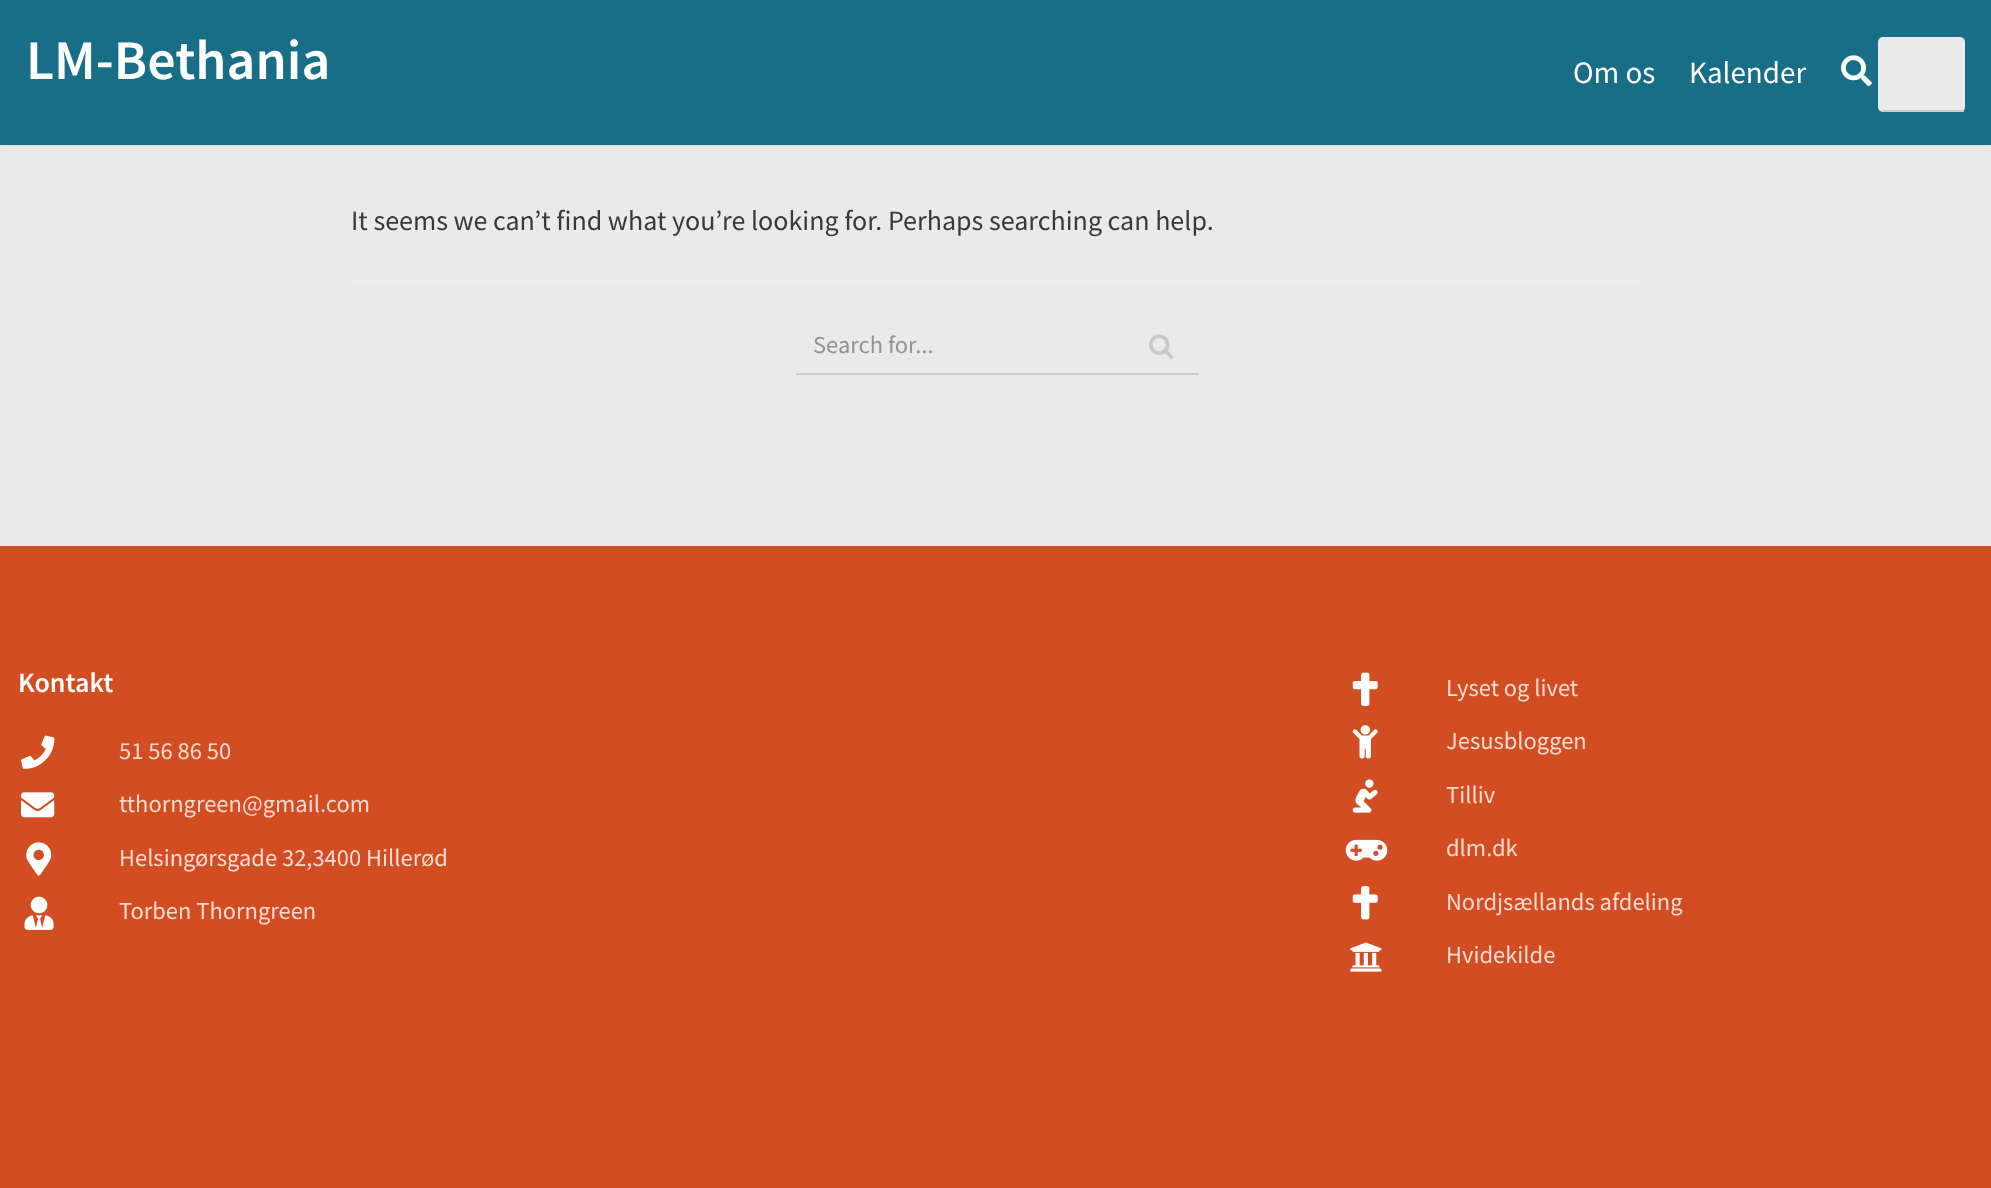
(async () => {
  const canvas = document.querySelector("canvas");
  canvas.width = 1991;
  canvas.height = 1188;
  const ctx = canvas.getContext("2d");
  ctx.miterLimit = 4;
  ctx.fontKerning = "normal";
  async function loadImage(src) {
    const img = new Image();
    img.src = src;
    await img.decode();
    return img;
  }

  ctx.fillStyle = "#eaeaea";
  ctx.fillRect(0, 0, 1991, 1188);
  ctx.fillStyle = "rgba(0, 0, 0, 0.1)";
  ctx.filter = "blur(2.5px)";
  ctx.beginPath();
  ctx.rect(0, -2, 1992, 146);
  ctx.fill();
  ctx.filter = "none";
  ctx.fillStyle = "#186e86";
  ctx.fillRect(0, 0, 1991, 145);
  ctx.drawImage(await loadImage("img/1.png"), 1841, 55, 31, 32);
  ctx.fillStyle = "#eaeaea";
  ctx.beginPath();
  ctx.roundRect(1878, 37, 87, 75, 5);
  ctx.fill();
  for (const [x, y, w, h, color] of [
    [1881, 110, 83, 2, "#cccccc"],
    [352, 280, 1288, 2, "#ededed"],
    [796, 373, 403, 2, "#cccccc"],
  ]) {
    ctx.fillStyle = color;
    ctx.fillRect(x, y, w, h);
  }
  ctx.drawImage(await loadImage("img/2.png"), 1149, 334, 25, 25);
  ctx.fillStyle = "#d24d21";
  ctx.fillRect(0, 546, 1991, 642);
  ctx.drawImage(await loadImage("img/3.png"), 21, 735, 34, 34);
  ctx.drawImage(await loadImage("img/4.png"), 21, 792, 34, 26);
  ctx.drawImage(await loadImage("img/5.png"), 26, 842, 26, 34);
  ctx.drawImage(await loadImage("img/6.png"), 24, 896, 30, 34);
  ctx.drawImage(await loadImage("img/7.png"), 1352, 672, 26, 34);
  ctx.drawImage(await loadImage("img/8.png"), 1352, 725, 26, 34);
  ctx.drawImage(await loadImage("img/9.png"), 1352, 779, 26, 34);
  ctx.drawImage(await loadImage("img/10.png"), 1345, 839, 43, 22);
  ctx.drawImage(await loadImage("img/11.png"), 1352, 886, 26, 34);
  ctx.drawImage(await loadImage("img/12.png"), 1350, 942, 32, 30);
  ctx.font = "600 56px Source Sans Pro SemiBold";
  ctx.fillStyle = "#ffffff";
  ctx.fillText("LM-Bethania", 26, 79);
  ctx.font = "31px Source Sans Pro";
  ctx.fillText("Om os", 1573, 83);
  ctx.fillText("Kalender", 1689, 83);
  ctx.font = "28px Source Sans Pro";
  ctx.fillStyle = "#393939";
  ctx.fillText("It seems we can’t find what you’re looking for. Perhaps searching can help.", 351, 230);
  ctx.font = "24.5px Source Sans Pro";
  ctx.fillStyle = "#929292";
  ctx.fillText("Search for...", 813, 353);
  ctx.font = "600 28px Source Sans Pro SemiBold";
  ctx.fillStyle = "#ffffff";
  ctx.fillText("Kontakt", 18, 692);
  ctx.font = "24.5px Source Sans Pro";
  ctx.fillStyle = "#f6dbd3";
  for (const [text, x, y] of [
    ["51 56 86 50", 119, 759],
    ["tthorngreen@gmail.com", 119, 812],
    ["Helsingørsgade 32,3400 Hillerød", 119, 866],
    ["Torben Thorngreen", 119, 919],
    ["Lyset og livet", 1446, 696],
    ["Jesusbloggen", 1446, 749],
    ["Tilliv", 1446, 803],
    ["dlm.dk", 1446, 856],
    ["Nordjsællands afdeling", 1446, 910],
    ["Hvidekilde", 1446, 963],
  ]) {
    ctx.fillText(text, x, y);
  }
})();
